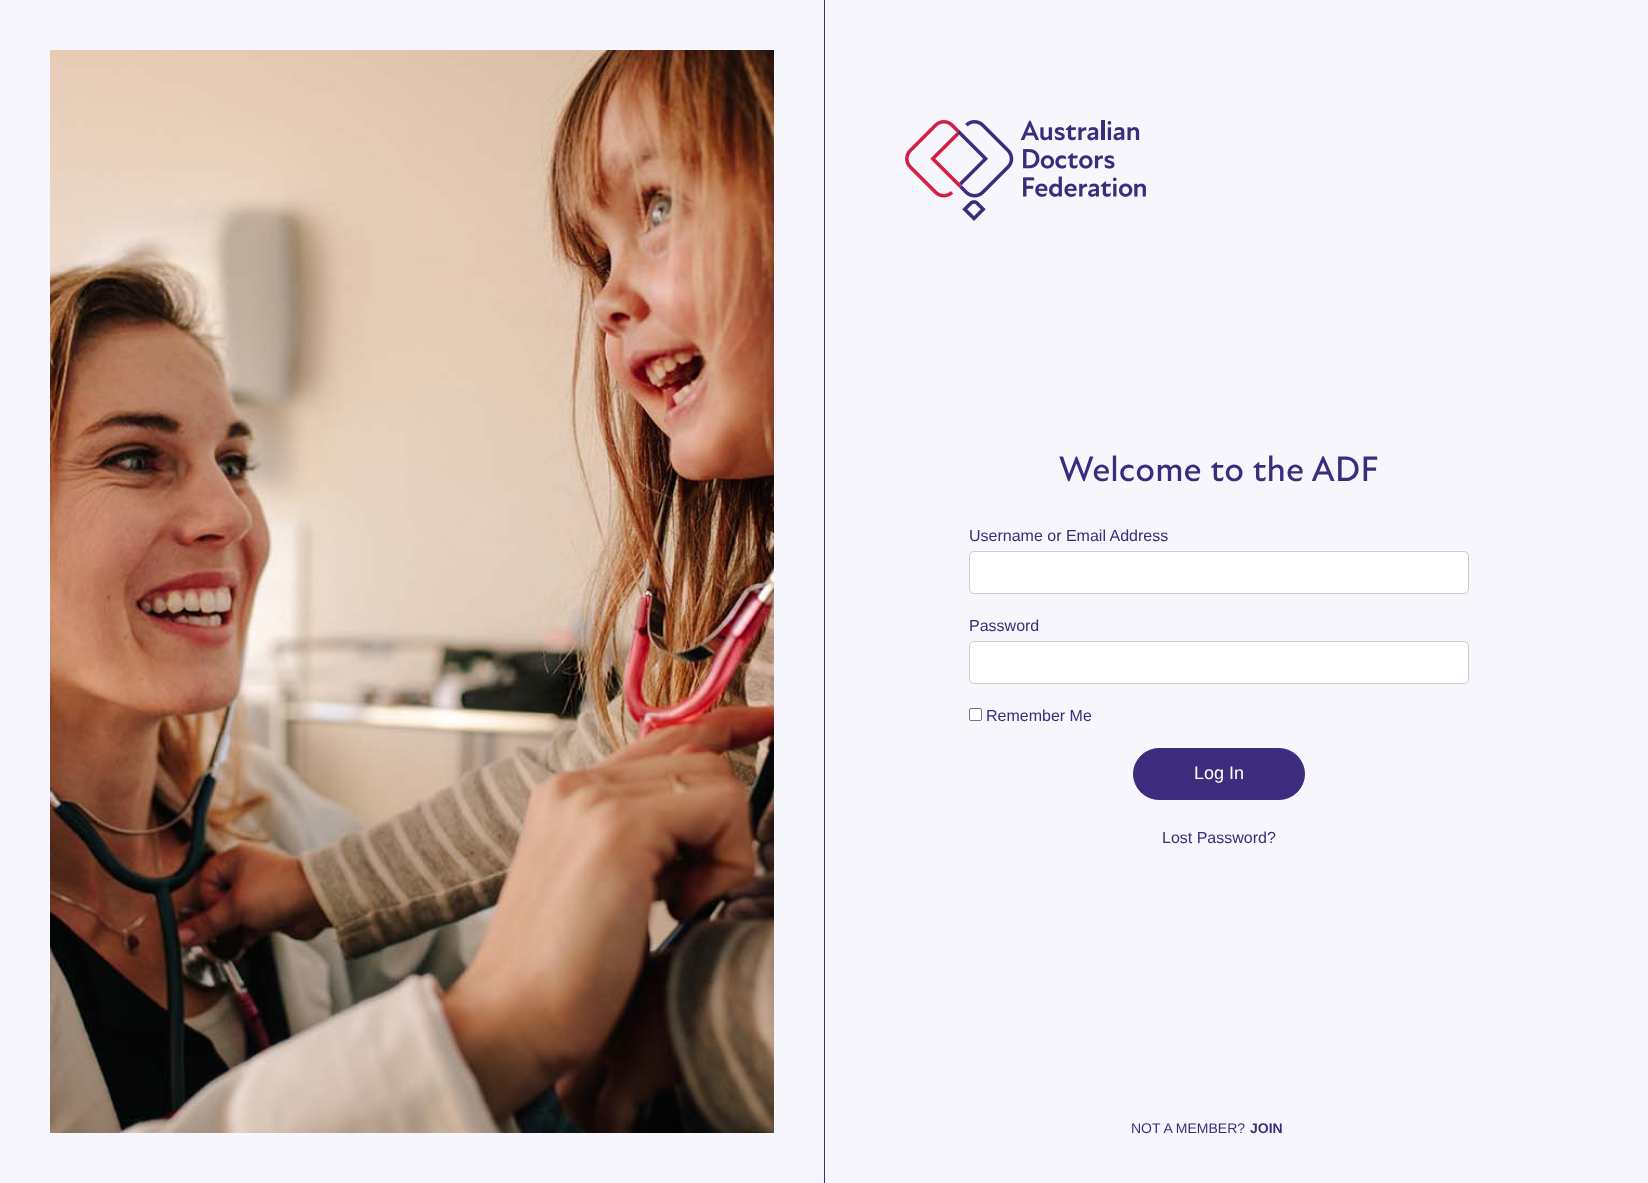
(async () => {
  const canvas = document.querySelector("canvas");
  canvas.width = 1648;
  canvas.height = 1183;
  const ctx = canvas.getContext("2d");
  ctx.miterLimit = 4;
  ctx.fontKerning = "normal";
  async function loadImage(src) {
    const img = new Image();
    img.src = src;
    await img.decode();
    return img;
  }

  ctx.fillStyle = "#f7f6fc";
  ctx.fillRect(0, 0, 1648, 1183);
  ctx.drawImage(await loadImage("img/1.png"), 50, 50, 724, 1083);
  ctx.fillStyle = "#3d2c7d";
  ctx.fillRect(824, 0, 1, 1183);
  ctx.drawImage(await loadImage("img/2.png"), 905, 120, 241, 101);
  ctx.fillStyle = "#ffffff";
  ctx.beginPath();
  ctx.roundRect(969.5, 551.5, 499, 42, 4.5);
  ctx.fill();
  ctx.strokeStyle = "#cccccc";
  ctx.stroke();
  ctx.beginPath();
  ctx.roundRect(969.5, 641.5, 499, 42, 4.5);
  ctx.fill();
  ctx.stroke();
  ctx.beginPath();
  ctx.roundRect(969.5, 708.5, 12, 12, 1.5);
  ctx.fill();
  ctx.strokeStyle = "#767676";
  ctx.stroke();
  ctx.fillStyle = "#3d2c7d";
  ctx.beginPath();
  ctx.roundRect(1133.5, 748.5, 171, 51, 25.5);
  ctx.fill();
  ctx.strokeStyle = "#3d2c7d";
  ctx.stroke();
  ctx.font = "500 36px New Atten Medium";
  ctx.fillText("Welcome to the ADF", 1059, 481);
  ctx.font = "16px Liberation Sans";
  for (const [text, x, y] of [
    ["Username or Email Address", 969, 541],
    ["Password", 969, 631],
    ["Remember Me", 986, 721],
  ]) {
    ctx.fillText(text, x, y);
  }
  ctx.font = "18px Liberation Sans";
  ctx.fillStyle = "#ffffff";
  ctx.fillText("Log In", 1194, 779);
  ctx.font = "16px Liberation Sans";
  ctx.fillStyle = "#3d2c7d";
  ctx.fillText("Lost Password?", 1162, 843);
  ctx.font = "14px Liberation Sans";
  ctx.fillText("NOT A MEMBER?", 1131, 1133);
  ctx.font = "bold 14px Liberation Sans";
  ctx.fillText("JOIN", 1250, 1133);
})();
